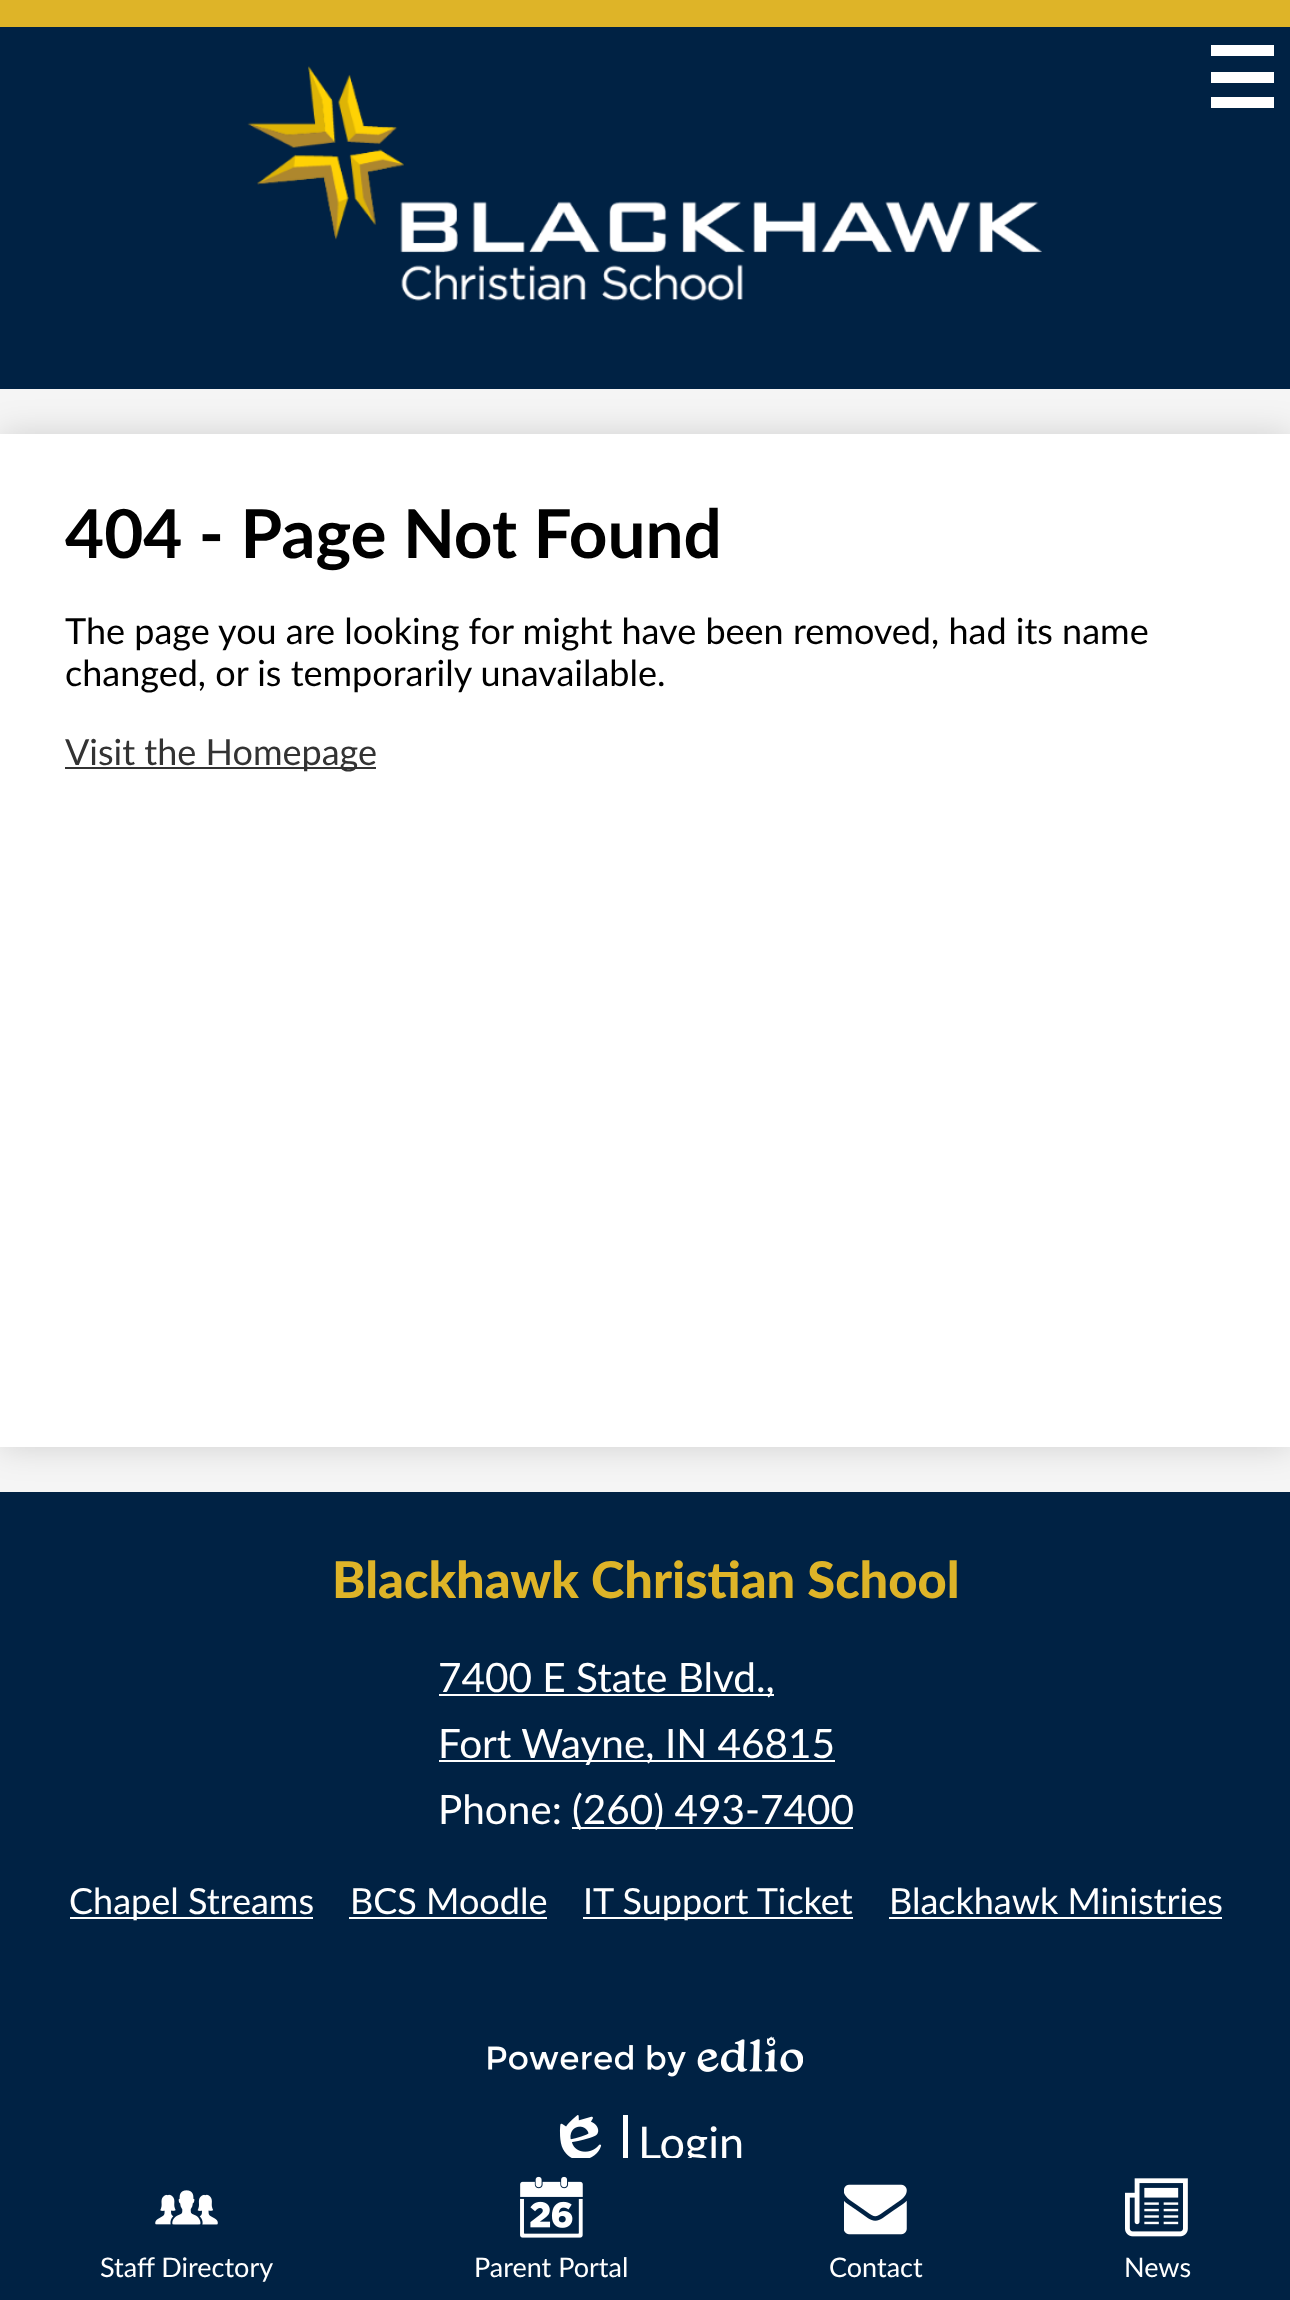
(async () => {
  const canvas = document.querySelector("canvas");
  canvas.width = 1290;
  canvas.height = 2300;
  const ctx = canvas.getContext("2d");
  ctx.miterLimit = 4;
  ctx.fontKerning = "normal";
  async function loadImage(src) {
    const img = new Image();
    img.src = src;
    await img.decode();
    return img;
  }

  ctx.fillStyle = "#f5f5f5";
  ctx.fillRect(0, 0, 1290, 2300);
  ctx.fillStyle = "#002244";
  ctx.fillRect(0, 1492, 1290, 666);
  ctx.fillStyle = "rgba(0, 0, 0, 0.15)";
  ctx.filter = "blur(17px)";
  ctx.beginPath();
  ctx.rect(0, 434, 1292, 1013);
  ctx.fill();
  ctx.filter = "none";
  ctx.fillStyle = "#002244";
  ctx.fillRect(0, 27, 1290, 362);
  ctx.fillStyle = "#deb428";
  ctx.fillRect(0, 0, 1290, 27);
  ctx.drawImage(await loadImage("img/1.png"), 247, 66, 795, 235);
  for (const [x, y, w, h, color] of [
    [1211, 45, 63, 11, "#ffffff"],
    [1211, 72, 63, 11, "#ffffff"],
    [1211, 97, 63, 11, "#ffffff"],
    [0, 434, 1290, 1013, "#ffffff"],
    [65, 767, 311, 2, "#333333"],
    [439, 1694, 335, 2, "#ffffff"],
    [439, 1760, 396, 2, "#ffffff"],
    [572, 1827, 281, 2, "#ffffff"],
    [70, 1917, 243, 2, "#ffffff"],
    [349, 1917, 198, 2, "#ffffff"],
    [583, 1917, 270, 2, "#ffffff"],
    [889, 1917, 333, 2, "#ffffff"],
  ]) {
    ctx.fillStyle = color;
    ctx.fillRect(x, y, w, h);
  }
  ctx.drawImage(await loadImage("img/2.png"), 488, 2036, 315, 41);
  ctx.fillRect(623, 2115, 5, 43);
  ctx.drawImage(await loadImage("img/3.png"), 559, 2115, 43, 43);
  ctx.font = "bold 67.5px Lato";
  ctx.fillStyle = "#000000";
  ctx.fillText("404 - Page Not Found", 65, 558);
  ctx.font = "36px Lato";
  ctx.fillText("The page you are looking for might have been removed, had its name", 65, 644);
  ctx.fillText("changed, or is temporarily unavailable.", 65, 686);
  ctx.fillStyle = "#333333";
  ctx.fillText("Visit the Homepage", 65, 765);
  ctx.font = "900 50.6px Lato";
  ctx.fillStyle = "#deb428";
  ctx.fillText("Blackhawk Christian School", 332, 1598);
  ctx.font = "40.5px Lato";
  ctx.fillStyle = "#ffffff";
  for (const [text, x, y] of [
    ["7400 E State Blvd.,", 438, 1692],
    ["Fort Wayne, IN 46815", 438, 1758],
    ["Phone:", 438, 1824],
    ["(260) 493-7400", 572, 1824],
  ]) {
    ctx.fillText(text, x, y);
  }
  ctx.font = "36px Lato";
  for (const [text, x, y] of [
    ["Chapel Streams", 69, 1914],
    ["BCS Moodle", 350, 1914],
    ["IT Support Ticket", 583, 1914],
    ["Blackhawk Ministries", 889, 1914],
  ]) {
    ctx.fillText(text, x, y);
  }
  ctx.font = "45px Lato";
  ctx.fillText("Login", 638, 2159);
  ctx.fillStyle = "#002244";
  ctx.fillRect(0, 2158, 1290, 142);
  ctx.drawImage(await loadImage("img/4.png"), 155, 2190, 63, 35);
  ctx.font = "27px Lato";
  ctx.fillStyle = "#ffffff";
  ctx.fillText("Staff Directory", 100, 2277);
  ctx.drawImage(await loadImage("img/5.png"), 520, 2176, 63, 62);
  ctx.fillText("Parent Portal", 474, 2277);
  ctx.drawImage(await loadImage("img/6.png"), 844, 2184, 63, 51);
  ctx.fillText("Contact", 829, 2277);
  ctx.drawImage(await loadImage("img/7.png"), 1125, 2178, 63, 59);
  ctx.fillText("News", 1124, 2277);
})();
